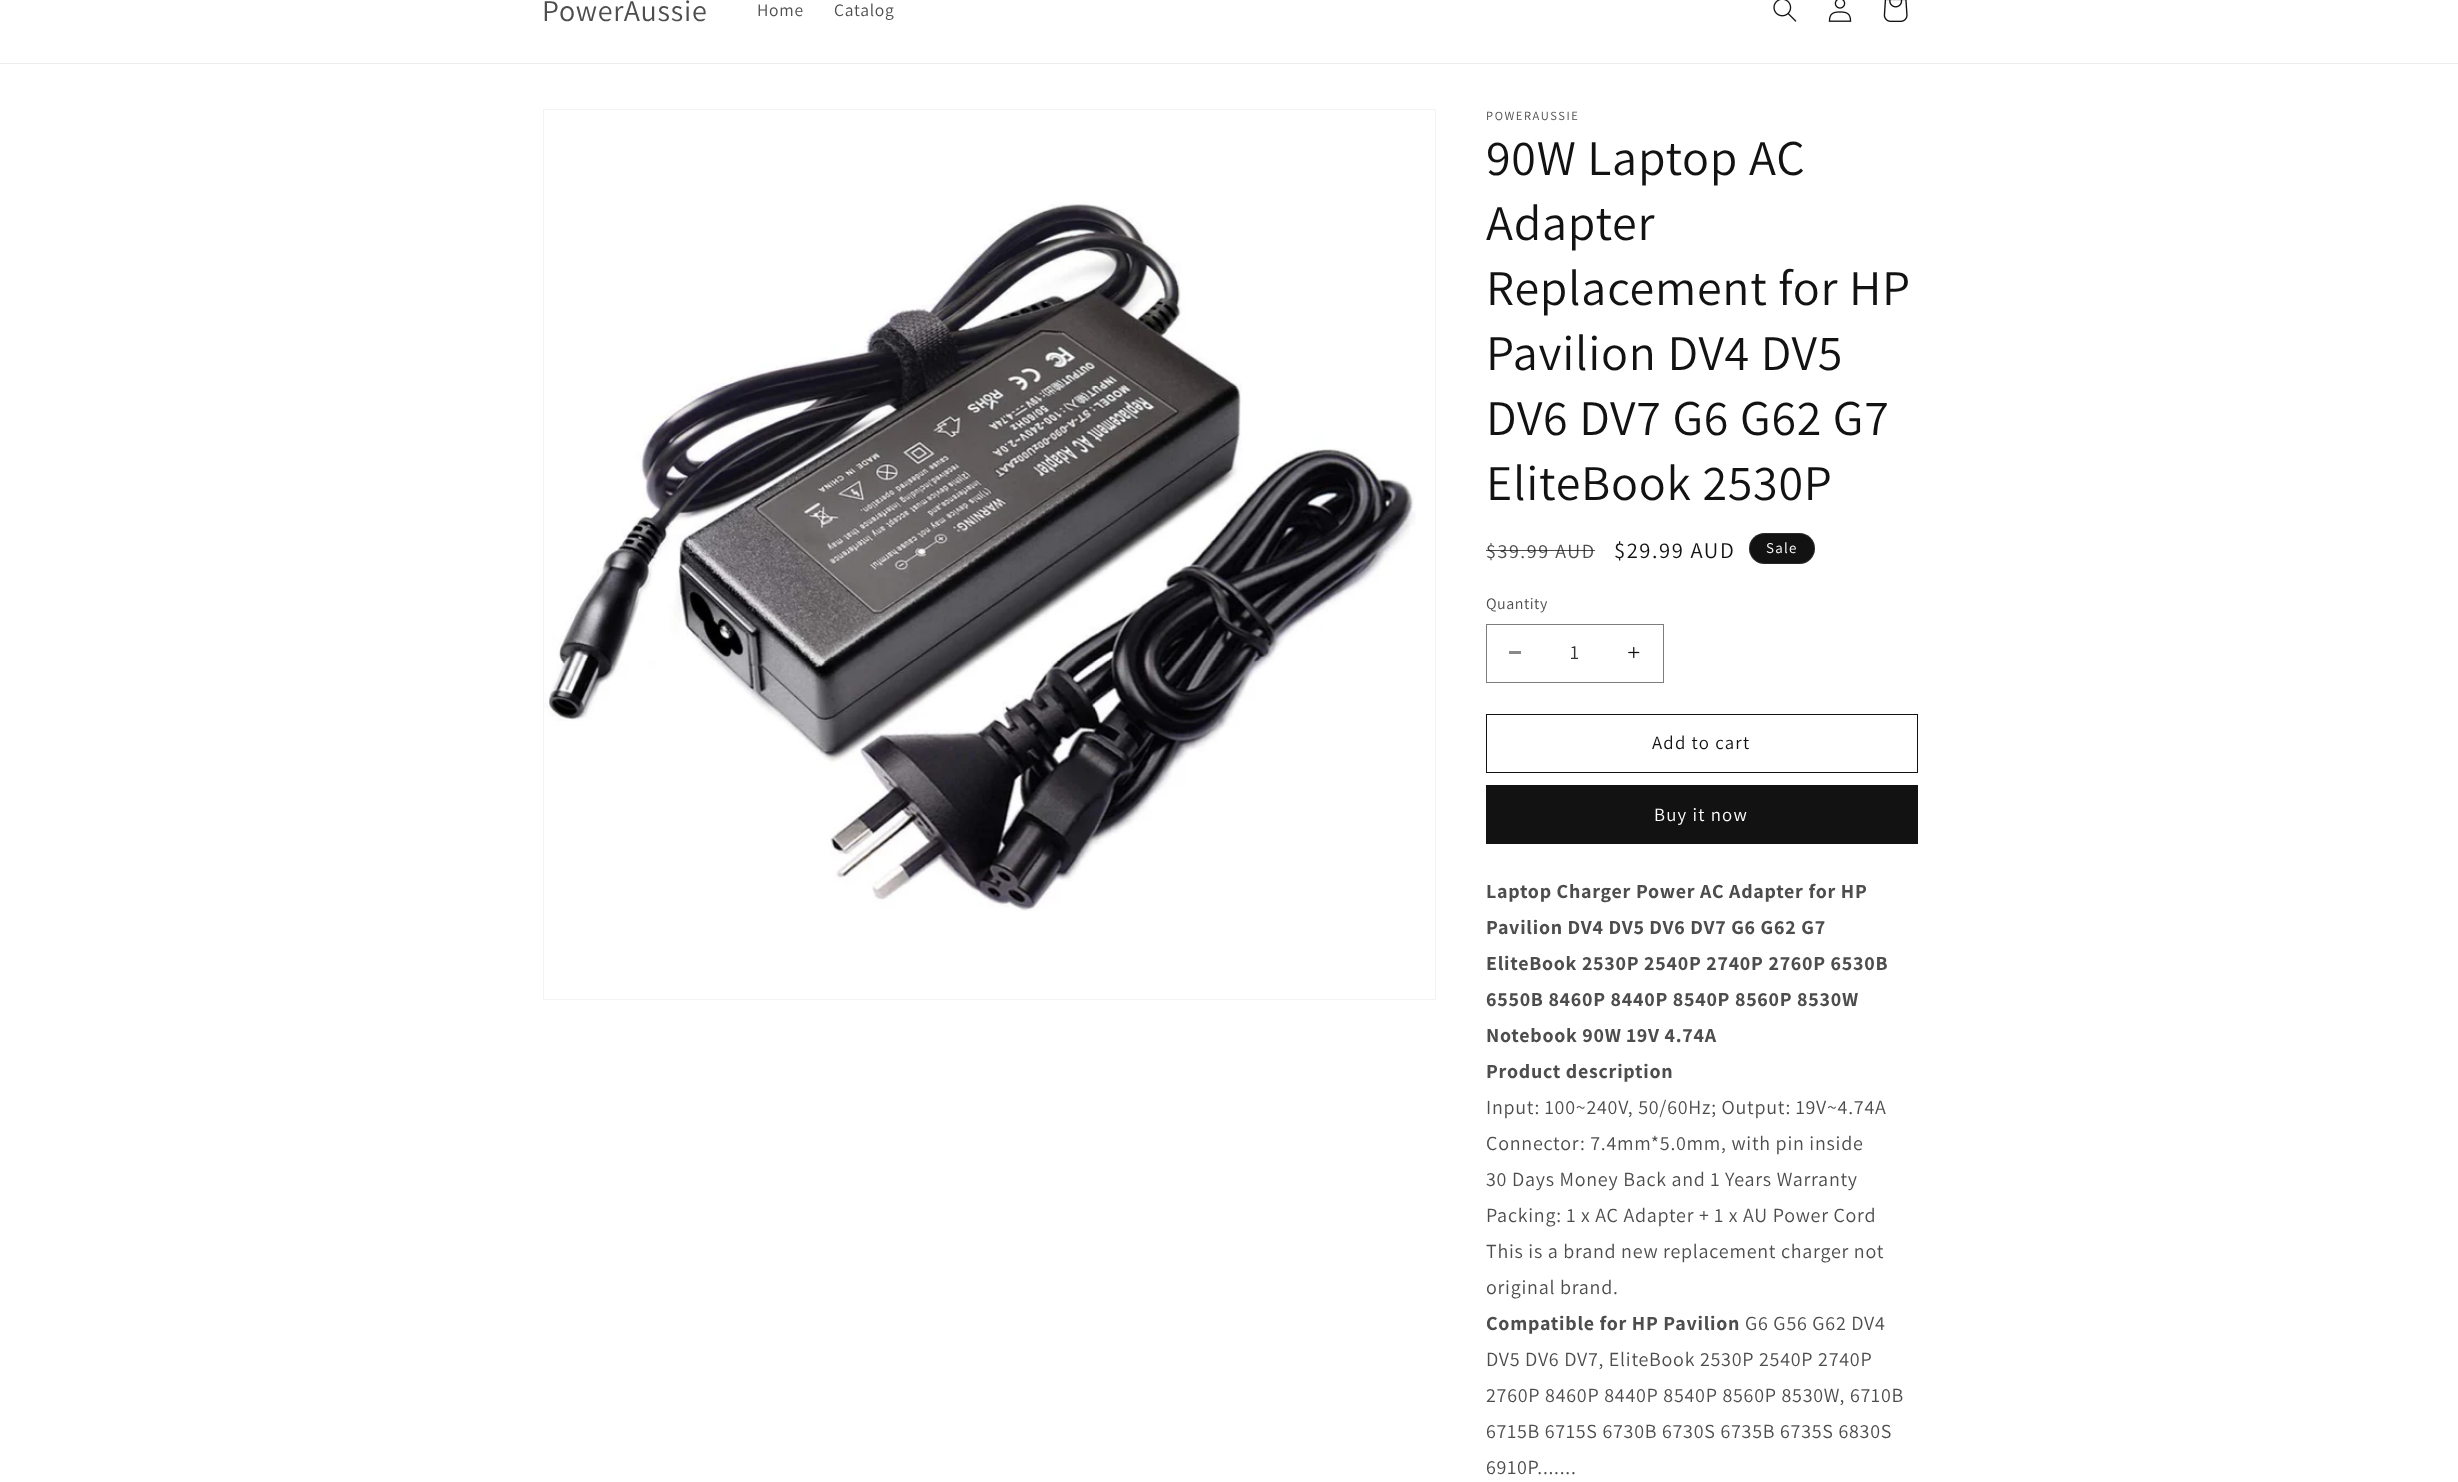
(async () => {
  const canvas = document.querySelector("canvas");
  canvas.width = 2458;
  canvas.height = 1482;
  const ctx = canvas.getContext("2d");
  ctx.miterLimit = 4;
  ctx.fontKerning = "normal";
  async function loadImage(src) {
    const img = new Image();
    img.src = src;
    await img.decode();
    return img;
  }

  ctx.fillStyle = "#ffffff";
  ctx.fillRect(0, 0, 2458, 1482);
  ctx.fillStyle = "#ececec";
  ctx.fillRect(0, 63, 2458, 1);
  ctx.drawImage(await loadImage("img/1.png"), 1773, 0, 24, 22);
  ctx.drawImage(await loadImage("img/2.png"), 1828, 0, 24, 22);
  ctx.drawImage(await loadImage("img/3.png"), 1883, 0, 25, 22);
  ctx.strokeStyle = "#f3f3f3";
  ctx.strokeRect(543.5, 109.5, 892, 890);
  ctx.drawImage(await loadImage("img/4.png"), 544, 201, 872, 710);
  ctx.fillStyle = "#121212";
  ctx.beginPath();
  ctx.roundRect(1749, 533, 66, 31, 15.5);
  ctx.fill();
  ctx.beginPath();
  ctx.roundRect(1749.5, 533.5, 65, 30, 15);
  ctx.strokeStyle = "rgba(255, 255, 255, 0.1)";
  ctx.stroke();
  ctx.fillStyle = "#898989";
  ctx.fillRect(1509, 651, 12, 3);
  ctx.drawImage(await loadImage("img/5.png"), 1628, 646, 12, 13);
  ctx.strokeStyle = "#7d7d7d";
  ctx.strokeRect(1486.5, 624.5, 177, 58);
  ctx.strokeStyle = "#121212";
  ctx.strokeRect(1486.5, 714.5, 431, 58);
  ctx.fillStyle = "#121212";
  ctx.fillRect(1486, 785, 432, 59);
  ctx.letterSpacing = "0.75px";
  ctx.font = "30px Assistant";
  ctx.fillStyle = "#4d4d4d";
  ctx.fillText("PowerAussie", 542, 21);
  ctx.font = "17.5px Assistant";
  ctx.fillText("Home", 757, 16);
  ctx.fillText("Catalog", 834, 16);
  ctx.letterSpacing = "1.6px";
  ctx.font = "12.5px Assistant";
  ctx.fillText("POWERAUSSIE", 1486, 120);
  ctx.letterSpacing = "0.75px";
  ctx.font = "50px Assistant";
  ctx.fillStyle = "#121212";
  for (const [text, x, y] of [
    ["90W Laptop AC", 1486, 175],
    ["Adapter", 1486, 240],
    ["Replacement for HP", 1486, 305],
    ["Pavilion DV4 DV5", 1486, 370],
    ["DV6 DV7 G6 G62 G7", 1486, 435],
    ["EliteBook 2530P", 1486, 500],
  ]) {
    ctx.fillText(text, x, y);
  }
  ctx.letterSpacing = "1.6px";
  ctx.font = "20px Assistant";
  ctx.fillStyle = "#4d4d4d";
  ctx.fillText("$39.99 AUD", 1486, 558);
  ctx.fillStyle = "rgba(18, 18, 18, 0.75)";
  ctx.fillRect(1486, 550, 109, 1);
  ctx.font = "22.5px Assistant";
  ctx.fillStyle = "#121212";
  ctx.fillText("$29.99 AUD", 1614, 558);
  ctx.letterSpacing = "1.25px";
  ctx.font = "15px Assistant";
  ctx.fillStyle = "#ffffff";
  ctx.fillText("Sale", 1766, 553);
  ctx.letterSpacing = "0.5px";
  ctx.font = "16px Assistant";
  ctx.fillStyle = "#4d4d4d";
  ctx.fillText("Quantity", 1486, 609);
  ctx.letterSpacing = "0px";
  ctx.font = "20px Assistant";
  ctx.fillStyle = "#363636";
  ctx.fillText("1", 1570, 659);
  ctx.letterSpacing = "1.25px";
  ctx.font = "18.75px Assistant";
  ctx.fillStyle = "#121212";
  ctx.fillText("Add to cart", 1652, 749);
  ctx.fillStyle = "#ffffff";
  ctx.fillText("Buy it now", 1654, 821);
  ctx.letterSpacing = "0.75px";
  ctx.font = "bold 20px Assistant";
  ctx.fillStyle = "#4d4d4d";
  for (const [text, x, y] of [
    ["Laptop Charger Power AC Adapter for HP", 1486, 898],
    ["Pavilion DV4 DV5 DV6 DV7 G6 G62 G7", 1486, 934],
    ["EliteBook 2530P 2540P 2740P 2760P 6530B", 1486, 970],
    ["6550B 8460P 8440P 8540P 8560P 8530W", 1486, 1006],
    ["Notebook 90W 19V 4.74A", 1486, 1042],
    ["Product description", 1486, 1078],
  ]) {
    ctx.fillText(text, x, y);
  }
  ctx.font = "20px Assistant";
  for (const [text, x, y] of [
    ["Input: 100~240V, 50/60Hz; Output: 19V~4.74A", 1486, 1114],
    ["Connector: 7.4mm*5.0mm, with pin inside", 1486, 1150],
    ["30 Days Money Back and 1 Years Warranty", 1486, 1186],
    ["Packing: 1 x AC Adapter + 1 x AU Power Cord", 1486, 1222],
    ["This is a brand new replacement charger not", 1486, 1258],
    ["original brand.", 1486, 1294],
  ]) {
    ctx.fillText(text, x, y);
  }
  ctx.font = "bold 20px Assistant";
  ctx.fillText("Compatible for HP Pavilion", 1486, 1330);
  ctx.font = "20px Assistant";
  for (const [text, x, y] of [
    ["G6 G56 G62 DV4", 1745, 1330],
    ["DV5 DV6 DV7, EliteBook 2530P 2540P 2740P", 1486, 1366],
    ["2760P 8460P 8440P 8540P 8560P 8530W, 6710B", 1486, 1402],
    ["6715B 6715S 6730B 6730S 6735B 6735S 6830S", 1486, 1438],
    ["6910P.......", 1486, 1474],
  ]) {
    ctx.fillText(text, x, y);
  }
})();
